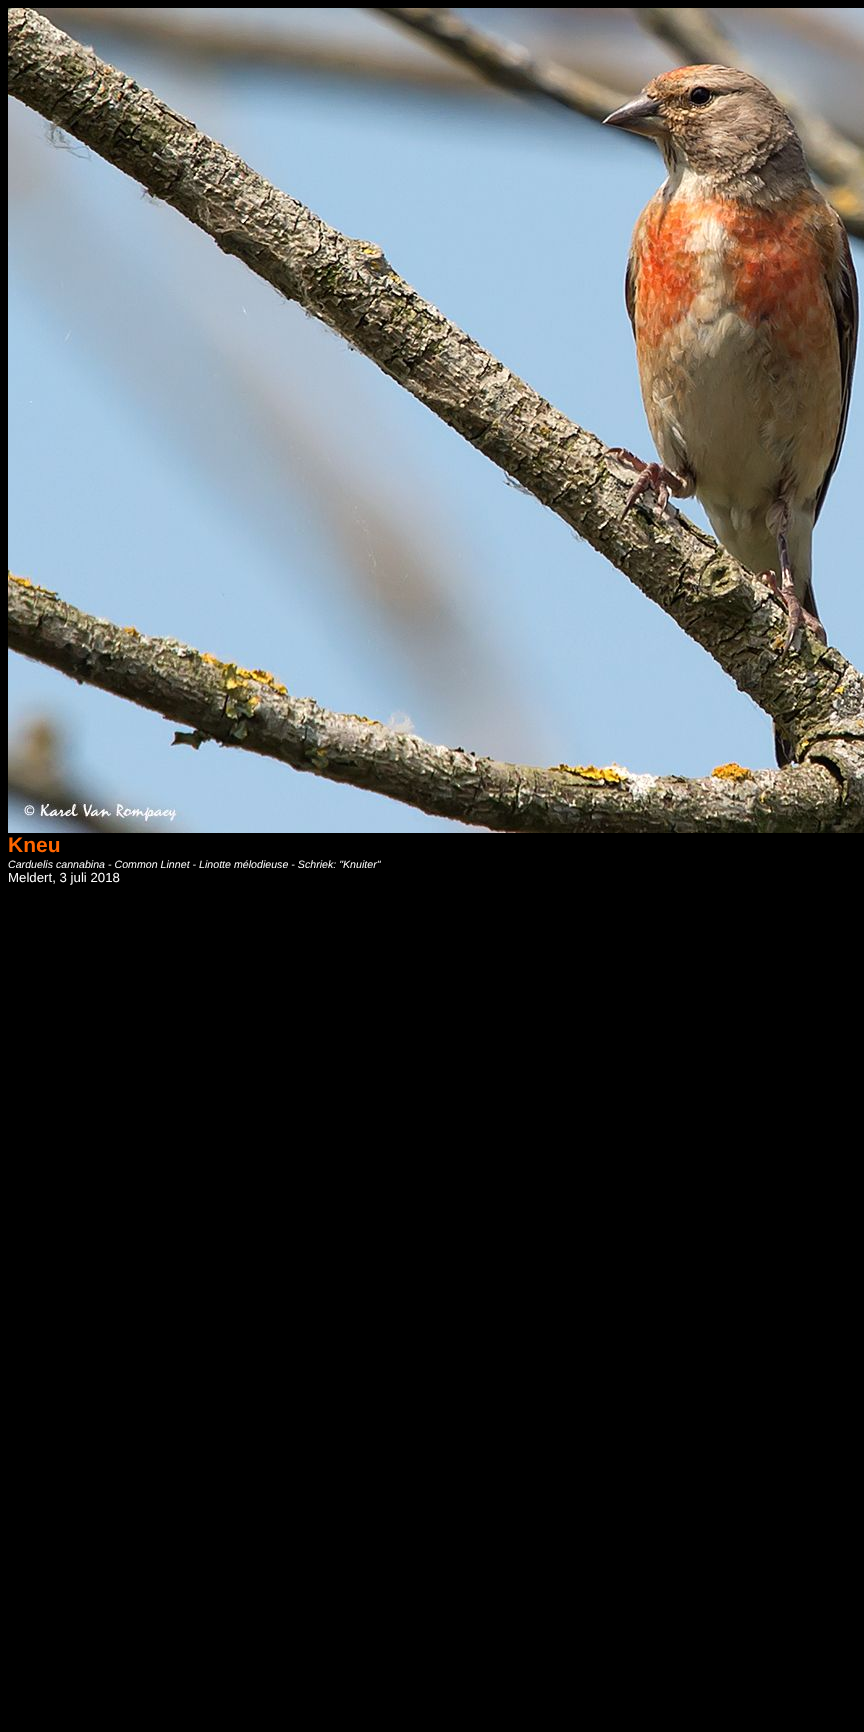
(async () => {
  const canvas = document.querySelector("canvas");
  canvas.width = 864;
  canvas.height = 1732;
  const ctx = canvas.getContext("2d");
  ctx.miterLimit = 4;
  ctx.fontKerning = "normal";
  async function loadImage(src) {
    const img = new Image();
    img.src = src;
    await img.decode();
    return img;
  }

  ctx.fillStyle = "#000000";
  ctx.fillRect(0, 0, 864, 1732);
  ctx.drawImage(await loadImage("img/1.png"), 8, 8, 856, 825);
  ctx.font = "bold 21px Liberation Sans";
  ctx.fillStyle = "#ff6600";
  ctx.fillText("Kneu", 8, 852);
  ctx.font = "italic 10.65px Liberation Sans";
  ctx.fillStyle = "#ffffff";
  ctx.fillText("Carduelis cannabina - Common Linnet - Linotte mélodieuse - Schriek: \"Knuiter\"", 8, 868);
  ctx.font = "13.25px Liberation Sans";
  ctx.fillText("Meldert, 3 juli 2018", 8, 882);
})();
